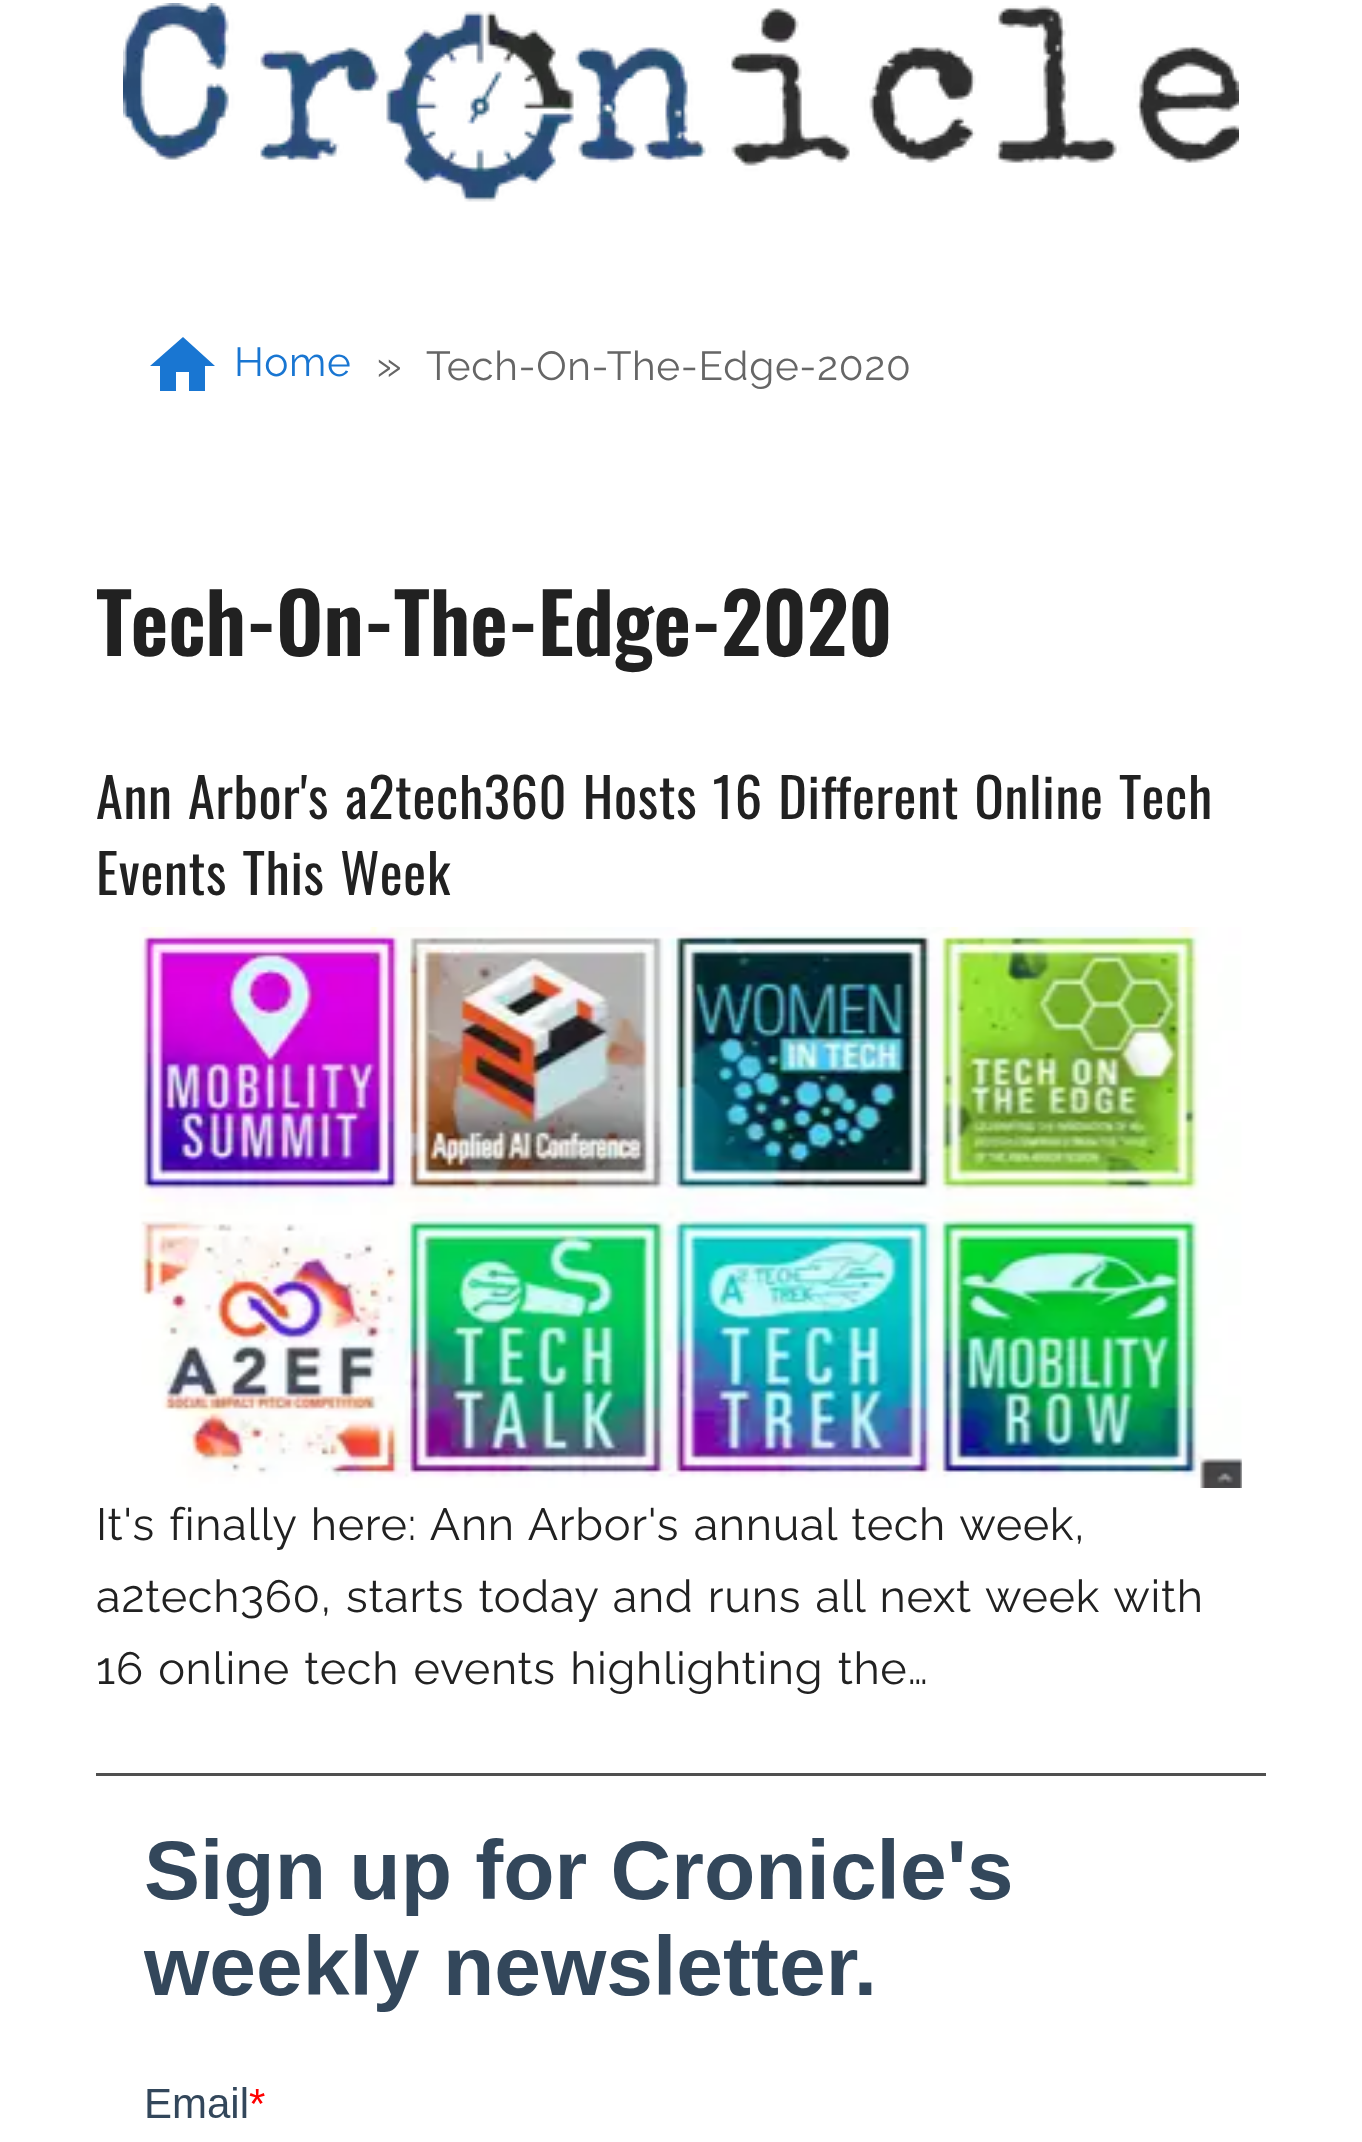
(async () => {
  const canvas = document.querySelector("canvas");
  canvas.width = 1362;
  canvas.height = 2142;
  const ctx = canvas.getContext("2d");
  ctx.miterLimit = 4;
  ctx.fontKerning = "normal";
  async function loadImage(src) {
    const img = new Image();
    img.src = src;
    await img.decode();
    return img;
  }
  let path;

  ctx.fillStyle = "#ffffff";
  ctx.fillRect(0, 0, 1362, 2142);
  ctx.drawImage(await loadImage("img/1.png"), 123, 3, 1116, 199);
  ctx.fillStyle = "#1976d2";
  path = new Path2D("M176 391V372H189V391H205V366H215L183 337L150 366H160V391Z");
  ctx.fill(path);
  ctx.fillStyle = "#4f4f4f";
  ctx.fillRect(96, 1773, 1170, 3);
  ctx.drawImage(await loadImage("img/2.png"), 139, 927, 1103, 561);
  ctx.drawImage(await loadImage("img/3.png"), 144, 1838, 866, 280);
  ctx.letterSpacing = "0.68px";
  ctx.font = "100 40.5px Raleway";
  ctx.fillStyle = "#1976d2";
  ctx.fillText("Home", 234, 376);
  ctx.font = "100 45px Raleway";
  ctx.fillStyle = "#666666";
  ctx.fillText("»", 376, 380);
  ctx.font = "100 40.5px Raleway";
  ctx.fillText("Tech-On-The-Edge-2020", 426, 380);
  ctx.letterSpacing = "-0.4px";
  ctx.font = "600 82.5px Oswald";
  ctx.fillStyle = "#212121";
  ctx.fillText("Tech-On-The-Edge-2020", 96, 656);
  ctx.letterSpacing = "0.68px";
  ctx.wordSpacing = "2.25px";
  ctx.font = "54.4px Oswald";
  ctx.fillText("Ann Arbor's a2tech360 Hosts 16 Different Online Tech", 96, 819);
  ctx.fillText("Events This Week", 96, 895);
  ctx.font = "100 45px Raleway";
  for (const [text, x, y] of [
    ["It's finally here: Ann Arbor's annual tech week,", 96, 1540],
    ["a2tech360, starts today and runs all next week with", 96, 1612],
    ["16 online tech events highlighting the…", 96, 1684],
  ]) {
    ctx.fillText(text, x, y);
  }
})();
